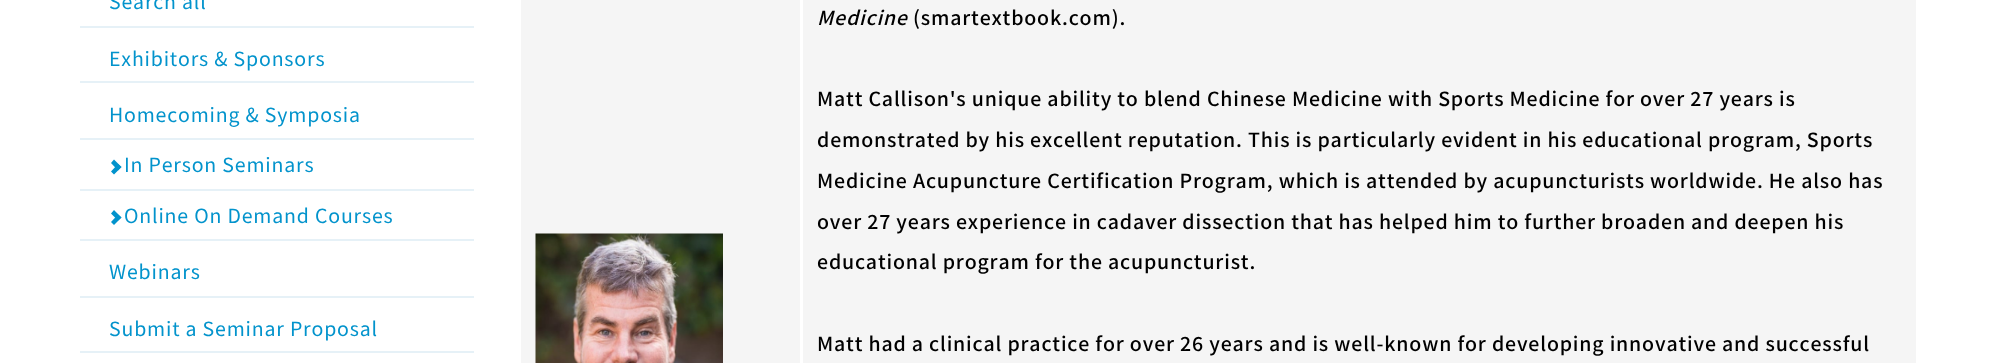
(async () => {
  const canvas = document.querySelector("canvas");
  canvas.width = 2008;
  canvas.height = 363;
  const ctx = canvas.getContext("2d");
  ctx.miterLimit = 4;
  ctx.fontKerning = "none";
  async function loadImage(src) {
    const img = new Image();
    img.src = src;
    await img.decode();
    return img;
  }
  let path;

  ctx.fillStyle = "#ffffff";
  ctx.fillRect(0, 0, 2008, 363);
  for (const [x, y, w, h, color] of [
    [80, 26, 394, 2, "#e6f1f7"],
    [80, 81, 394, 2, "#e6f1f7"],
    [80, 138, 394, 2, "#e6f1f7"],
    [80, 189, 394, 2, "#e6f1f7"],
  ]) {
    ctx.fillStyle = color;
    ctx.fillRect(x, y, w, h);
  }
  ctx.fillStyle = "#0293cc";
  path = new Path2D("M111 163L114 159.5L121.5 167L118 170.5Z");
  ctx.fill(path);
  path = new Path2D("M111 171.5L118 164L121.5 167L114 174.5ZM111 213.5L114 210L121.5 217.5L118 220.5Z");
  ctx.fill(path);
  ctx.fillStyle = "#e6f1f7";
  ctx.fillRect(80, 239, 394, 2);
  ctx.fillStyle = "#0293cc";
  path = new Path2D("M111 222L118 214.5L121.5 217.5L114 225Z");
  ctx.fill(path);
  for (const [x, y, w, h, color] of [
    [80, 296, 394, 2, "#e6f1f7"],
    [80, 351, 394, 2, "#e6f1f7"],
    [521, 0, 279, 363, "#f5f5f5"],
  ]) {
    ctx.fillStyle = color;
    ctx.fillRect(x, y, w, h);
  }
  ctx.drawImage(await loadImage("img/1.png"), 535, 233, 188, 130);
  ctx.fillRect(803, 0, 1113, 363);
  ctx.letterSpacing = "0.84px";
  ctx.font = "19.5px Noto Sans JP";
  ctx.fillStyle = "#0293cc";
  for (const [text, x, y] of [
    ["Search all", 109, 9],
    ["Exhibitors & Sponsors", 109, 66],
    ["Homecoming & Symposia", 109, 122],
    ["In Person Seminars", 124, 172],
    ["Online On Demand Courses", 124, 223],
    ["Webinars", 109, 279],
    ["Submit a Seminar Proposal", 109, 336],
  ]) {
    ctx.fillText(text, x, y);
  }
  ctx.font = "italic 500 19.5px Noto Sans JP";
  ctx.fillStyle = "#000000";
  ctx.fillText("Medicine", 817, 25);
  ctx.font = "500 19.5px Noto Sans JP";
  for (const [text, x, y] of [
    ["(smartextbook.com).", 913, 25],
    ["Matt Callison's unique ability to blend Chinese Medicine with Sports Medicine for over 27 years is", 817, 106],
    ["demonstrated by his excellent reputation.", 817, 147],
    ["This is particularly evident in his educational program, Sports", 1248, 147],
    ["Medicine Acupuncture Certification Program, which is attended by acupuncturists", 817, 188],
    ["worldwide. He also has", 1650, 188],
    ["over 27 years experience in cadaver dissection that has helped him to further broaden", 817, 229],
    ["and deepen his", 1691, 229],
    ["educational program for the acupuncturist.", 817, 269],
    ["Matt had a clinical practice for over 26 years", 817, 351],
    ["and is well-known for developing innovative and successful", 1269, 351],
  ]) {
    ctx.fillText(text, x, y);
  }
})();
